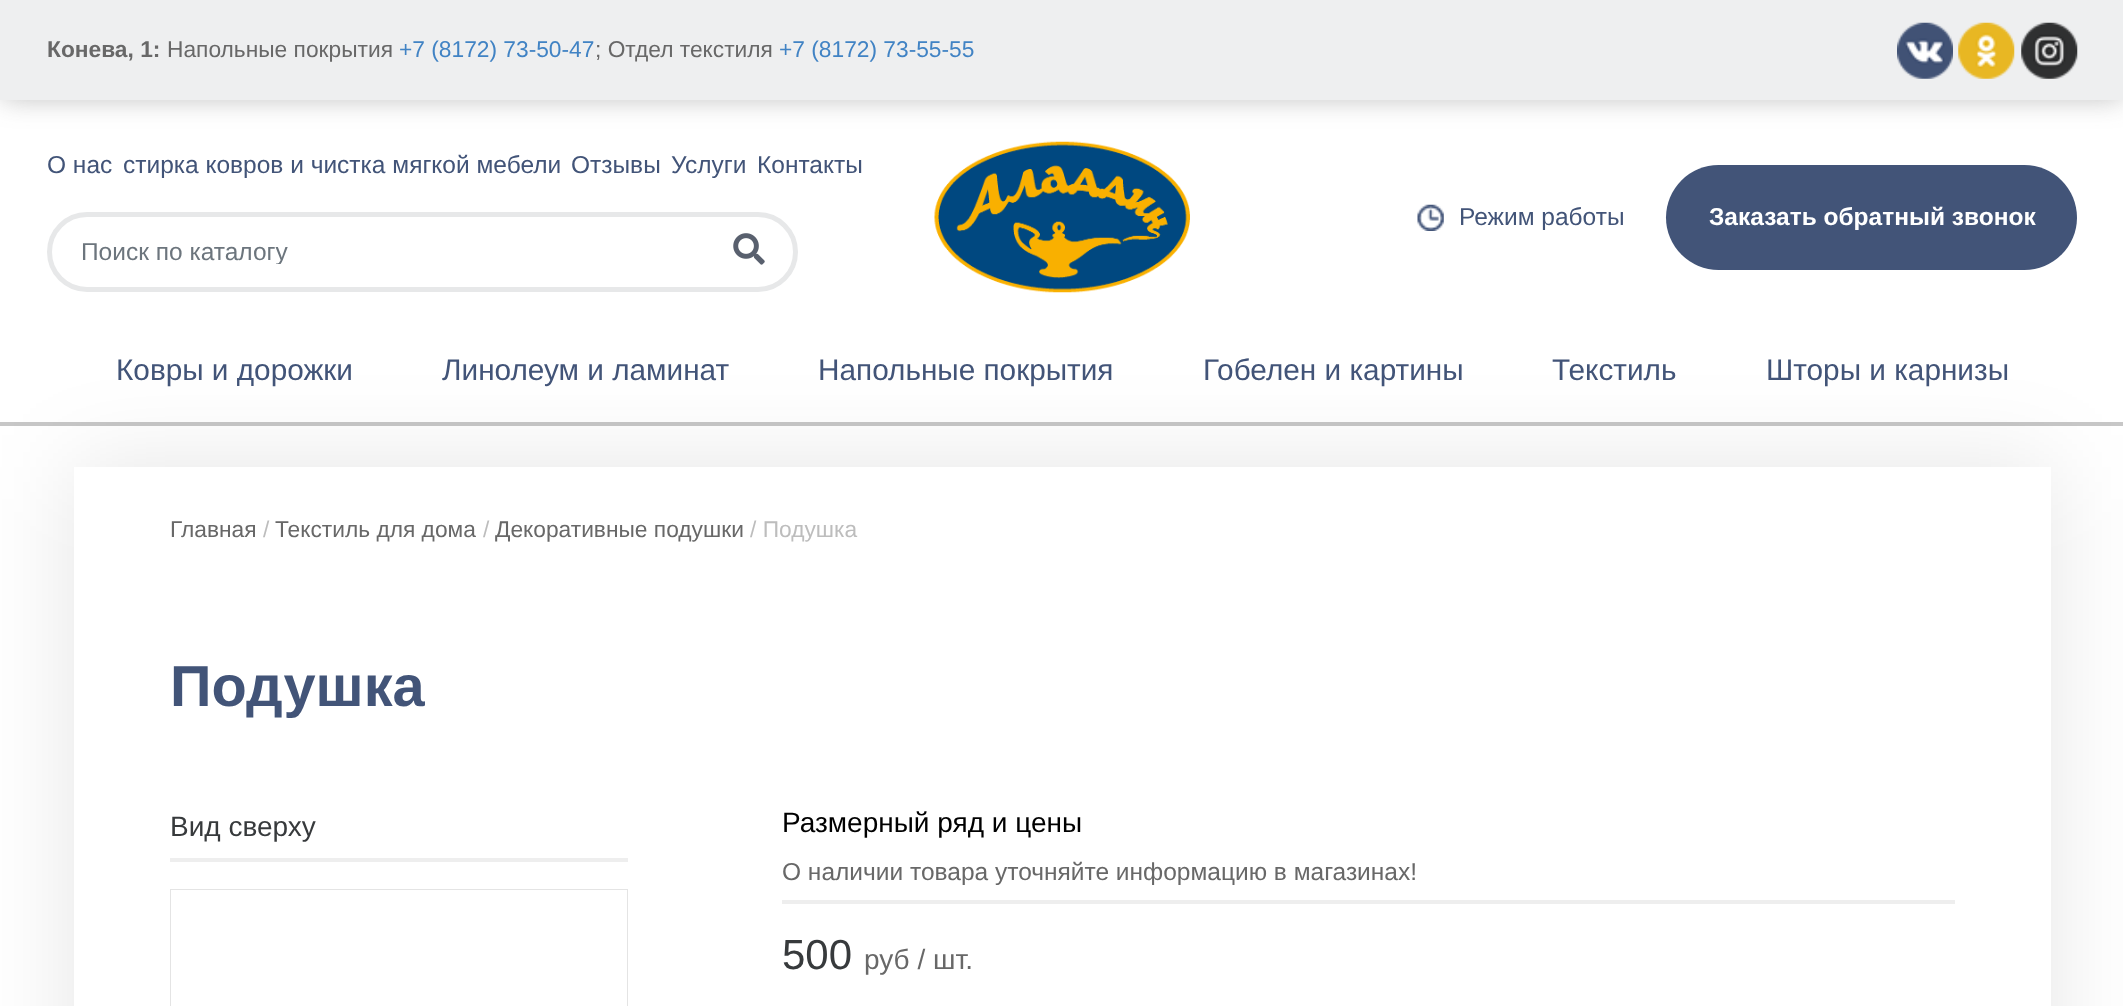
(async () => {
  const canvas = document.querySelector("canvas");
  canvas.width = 2123;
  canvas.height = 1006;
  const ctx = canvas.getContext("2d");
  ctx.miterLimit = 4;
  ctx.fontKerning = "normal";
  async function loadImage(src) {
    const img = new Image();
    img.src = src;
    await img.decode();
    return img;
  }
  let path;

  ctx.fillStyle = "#ffffff";
  ctx.fillRect(0, 0, 2123, 1006);
  ctx.fillStyle = "#c7c7c7";
  ctx.fillRect(0, 422, 2123, 4);
  ctx.fillStyle = "rgba(82, 82, 82, 0.39)";
  ctx.filter = "blur(14px)";
  ctx.beginPath();
  ctx.rect(2, 2, 2121, 96);
  ctx.fill();
  ctx.filter = "none";
  ctx.fillStyle = "#eeeff0";
  ctx.fillRect(0, 0, 2123, 100);
  ctx.drawImage(await loadImage("img/1.png"), 1897, 22, 56, 57);
  ctx.drawImage(await loadImage("img/2.png"), 1958, 22, 57, 57);
  ctx.drawImage(await loadImage("img/3.png"), 2021, 22, 57, 57);
  ctx.beginPath();
  ctx.roundRect(49.5, 214.5, 746, 75, 37.5);
  ctx.strokeStyle = "#e7e8e9";
  ctx.lineWidth = 5;
  ctx.stroke();
  ctx.drawImage(await loadImage("img/4.png"), 733, 233, 32, 32);
  ctx.drawImage(await loadImage("img/5.png"), 934, 141, 256, 152);
  ctx.drawImage(await loadImage("img/6.png"), 1417, 204, 27, 27);
  ctx.fillStyle = "#425478";
  ctx.beginPath();
  ctx.roundRect(1666, 165, 411, 105, 52.5);
  ctx.fill();
  ctx.save();
  path = new Path2D("M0 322H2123V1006H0ZM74 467H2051V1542H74Z");
  ctx.clip(path, "evenodd");
  ctx.fillStyle = "rgba(0, 0, 0, 0.1)";
  ctx.filter = "blur(48px)";
  ctx.beginPath();
  ctx.rect(74, 467, 1977, 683);
  ctx.fill();
  ctx.filter = "none";
  ctx.restore();
  ctx.fillStyle = "#eeeeee";
  ctx.fillRect(170, 858, 458, 4);
  ctx.strokeStyle = "#e4e4e4";
  ctx.lineWidth = 2;
  ctx.strokeRect(171, 890, 456, 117);
  ctx.fillStyle = "#ffffff";
  ctx.fillRect(171, 890, 456, 116);
  ctx.fillStyle = "#eeeeee";
  ctx.fillRect(782, 900, 1173, 4);
  ctx.font = "bold 22.75px Liberation Sans";
  ctx.fillStyle = "#686868";
  ctx.fillText("Конева, 1:", 47, 57);
  ctx.font = "22.75px Liberation Sans";
  ctx.fillText("Напольные покрытия", 167, 57);
  ctx.fillStyle = "#4183c4";
  ctx.fillText("+7 (8172) 73-50-47", 399, 57);
  ctx.fillStyle = "#686868";
  ctx.fillText("; Отдел текстиля", 595, 57);
  ctx.fillStyle = "#4183c4";
  ctx.fillText("+7 (8172) 73-55-55", 779, 57);
  ctx.font = "24.5px Liberation Sans";
  ctx.fillStyle = "#425478";
  for (const [text, x, y] of [
    ["О нас", 47, 173],
    ["стирка ковров и чистка мягкой мебели", 123, 173],
    ["Отзывы", 571, 173],
    ["Услуги", 671, 173],
    ["Контакты", 757, 173],
  ]) {
    ctx.fillText(text, x, y);
  }
  ctx.save();
  ctx.beginPath();
  ctx.rect(81, 236, 684, 28);
  ctx.clip();
  ctx.fillStyle = "#6c757d";
  ctx.fillText("Поиск по каталогу", 81, 260);
  ctx.restore();
  ctx.fillText("Режим работы", 1459, 225);
  ctx.font = "bold 24.5px Liberation Sans";
  ctx.fillStyle = "#ffffff";
  ctx.fillText("Заказать обратный звонок", 1709, 225);
  ctx.font = "29.75px Liberation Sans";
  ctx.fillStyle = "#425478";
  for (const [text, x, y] of [
    ["Ковры и дорожки", 116, 380],
    ["Линолеум и ламинат", 442, 380],
    ["Напольные покрытия", 818, 380],
    ["Гобелен и картины", 1203, 380],
    ["Текстиль", 1552, 380],
    ["Шторы и карнизы", 1766, 380],
  ]) {
    ctx.fillText(text, x, y);
  }
  ctx.font = "22.75px Liberation Sans";
  ctx.fillStyle = "#686868";
  ctx.fillText("Главная", 170, 537);
  ctx.fillStyle = "#bdbdbd";
  ctx.fillText("/", 263, 537);
  ctx.fillStyle = "#686868";
  ctx.fillText("Текстиль для дома", 275, 537);
  ctx.fillStyle = "#bdbdbd";
  ctx.fillText("/", 483, 537);
  ctx.fillStyle = "#686868";
  ctx.fillText("Декоративные подушки", 495, 537);
  ctx.fillStyle = "#bdbdbd";
  ctx.fillText("/ Подушка", 750, 537);
  ctx.font = "bold 57.75px Liberation Sans";
  ctx.fillStyle = "#425478";
  ctx.fillText("Подушка", 170, 706);
  ctx.font = "28px Liberation Sans";
  ctx.fillStyle = "#373a3c";
  ctx.fillText("Вид сверху", 170, 836);
  ctx.fillStyle = "#000000";
  ctx.fillText("Размерный ряд и цены", 782, 832);
  ctx.font = "24.5px Liberation Sans";
  ctx.fillStyle = "#686868";
  ctx.fillText("О наличии товара уточняйте информацию в магазинах!", 782, 880);
  ctx.font = "42px Liberation Sans";
  ctx.fillStyle = "#373a3c";
  ctx.fillText("500", 782, 969);
  ctx.font = "28px Liberation Sans";
  ctx.fillStyle = "#686868";
  ctx.fillText("руб / шт.", 864, 969);
})();
